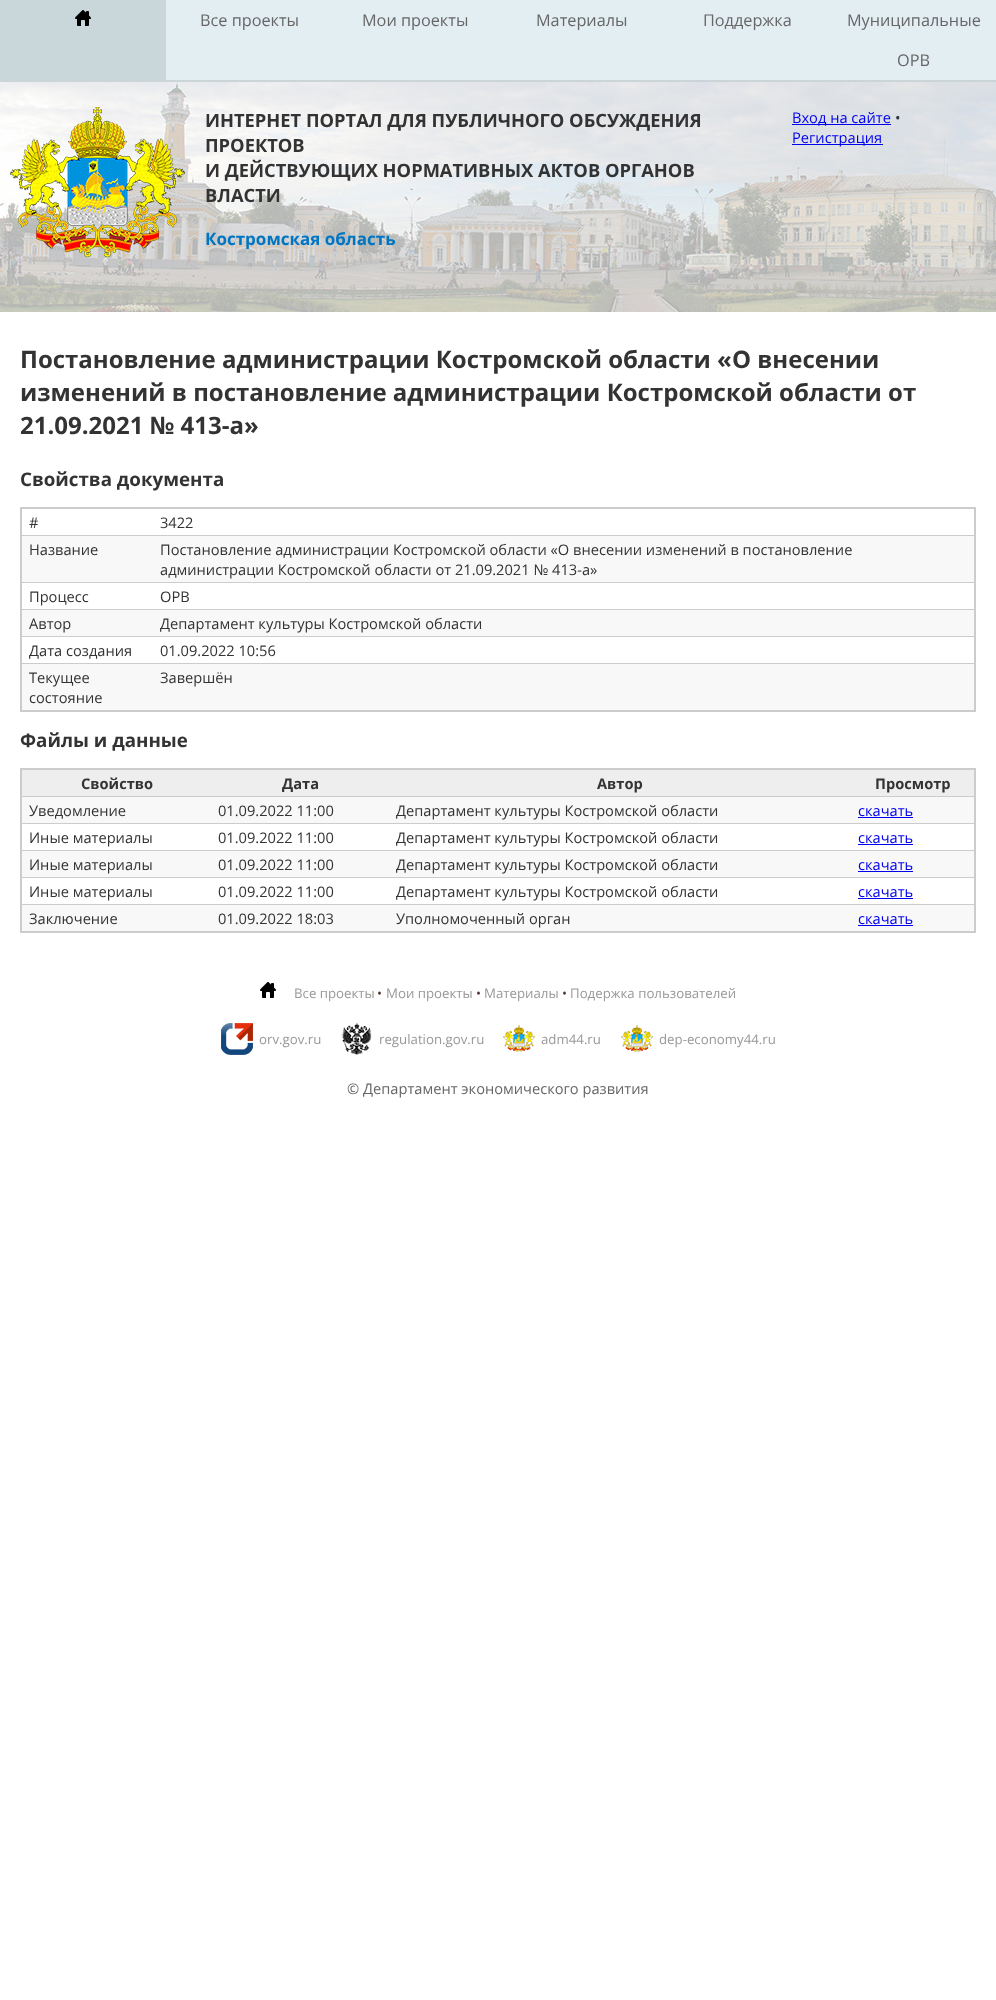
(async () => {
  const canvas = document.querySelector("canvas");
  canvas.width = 996;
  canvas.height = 2000;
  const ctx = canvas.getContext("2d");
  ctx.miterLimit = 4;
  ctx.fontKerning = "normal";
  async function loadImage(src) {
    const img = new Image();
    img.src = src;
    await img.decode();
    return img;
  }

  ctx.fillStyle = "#ffffff";
  ctx.fillRect(0, 0, 996, 2000);
  for (const [x, y, w, h, color] of [
    [166, 0, 830, 80, "#e3eef3"],
    [0, 80, 996, 2, "#cbd4d7"],
    [0, 0, 166, 80, "#cad7da"],
  ]) {
    ctx.fillStyle = color;
    ctx.fillRect(x, y, w, h);
  }
  ctx.drawImage(await loadImage("img/1.png"), 75, 10, 16, 16);
  ctx.drawImage(await loadImage("img/2.png"), 0, 82, 996, 230);
  ctx.drawImage(await loadImage("img/3.png"), 10, 107, 175, 150);
  for (const [x, y, w, h, color] of [
    [792, 124, 99, 1, "#0000ee"],
    [792, 144, 91, 1, "#0000ee"],
    [20, 507, 956, 2, "#cccccc"],
    [21, 535, 955, 1, "#cccccc"],
    [21, 582, 955, 1, "#cccccc"],
    [21, 609, 955, 1, "#cccccc"],
    [21, 636, 955, 1, "#cccccc"],
    [21, 663, 955, 1, "#cccccc"],
    [974, 507, 2, 205, "#cccccc"],
    [20, 710, 956, 2, "#cccccc"],
    [20, 507, 2, 205, "#cccccc"],
    [22, 536, 952, 46, "#f8f8f8"],
    [22, 610, 952, 26, "#f8f8f8"],
    [22, 664, 952, 46, "#f8f8f8"],
    [20, 768, 956, 2, "#cccccc"],
    [21, 796, 955, 1, "#cccccc"],
    [21, 823, 955, 1, "#cccccc"],
    [21, 850, 955, 1, "#cccccc"],
    [21, 877, 955, 1, "#cccccc"],
    [21, 904, 955, 1, "#cccccc"],
    [974, 768, 2, 165, "#cccccc"],
    [20, 931, 956, 2, "#cccccc"],
    [20, 768, 2, 165, "#cccccc"],
    [22, 770, 952, 26, "#eeeeee"],
    [22, 797, 952, 26, "#f8f8f8"],
    [858, 817, 55, 1, "#0000ee"],
    [858, 844, 55, 1, "#0000ee"],
    [22, 851, 952, 26, "#f8f8f8"],
    [858, 871, 55, 1, "#0000ee"],
    [858, 898, 55, 1, "#0000ee"],
    [22, 905, 952, 26, "#f8f8f8"],
    [858, 925, 55, 1, "#0000ee"],
  ]) {
    ctx.fillStyle = color;
    ctx.fillRect(x, y, w, h);
  }
  ctx.drawImage(await loadImage("img/4.png"), 260, 982, 16, 16);
  ctx.drawImage(await loadImage("img/5.png"), 221, 1023, 32, 32);
  ctx.drawImage(await loadImage("img/6.png"), 341, 1023, 31, 32);
  ctx.drawImage(await loadImage("img/7.png"), 503, 1025, 32, 27);
  ctx.drawImage(await loadImage("img/7.png"), 621, 1025, 32, 27);
  ctx.font = "16.25px Open Sans";
  ctx.fillStyle = "#666666";
  for (const [text, x, y] of [
    ["Все проекты", 200, 26],
    ["Мои проекты", 362, 26],
    ["Материалы", 536, 26],
    ["Поддержка", 703, 26],
    ["Муниципальные", 847, 26],
    ["ОРВ", 897, 66],
  ]) {
    ctx.fillText(text, x, y);
  }
  ctx.font = "bold 18.3px Open Sans";
  ctx.fillStyle = "#333333";
  for (const [text, x, y] of [
    ["ИНТЕРНЕТ ПОРТАЛ ДЛЯ ПУБЛИЧНОГО ОБСУЖДЕНИЯ", 205, 127],
    ["ПРОЕКТОВ", 205, 152],
    ["И ДЕЙСТВУЮЩИХ НОРМАТИВНЫХ АКТОВ ОРГАНОВ", 205, 177],
    ["ВЛАСТИ", 205, 202],
  ]) {
    ctx.fillText(text, x, y);
  }
  ctx.font = "bold 17px Open Sans";
  ctx.fillStyle = "#0075c2";
  ctx.fillText("Костромская область", 205, 245);
  ctx.font = "14.65px Open Sans";
  ctx.fillStyle = "#0000ee";
  ctx.fillText("Вход на сайте", 792, 123);
  ctx.fillStyle = "#333333";
  ctx.fillText("•", 895, 123);
  ctx.fillStyle = "#0000ee";
  ctx.fillText("Регистрация", 792, 143);
  ctx.font = "bold 24px Open Sans";
  ctx.fillStyle = "#333333";
  for (const [text, x, y] of [
    ["Постановление администрации Костромской области «О внесении", 20, 368],
    ["изменений в постановление администрации Костромской области от", 20, 401],
    ["21.09.2021 № 413-а»", 20, 434],
  ]) {
    ctx.fillText(text, x, y);
  }
  ctx.font = "bold 18.75px Open Sans";
  ctx.fillText("Свойства документа", 20, 486);
  ctx.font = "14.65px Open Sans";
  for (const [text, x, y] of [
    ["#", 29, 528],
    ["3422", 160, 528],
    ["Название", 29, 555],
    ["Постановление администрации Костромской области «О внесении изменений в постановление", 160, 555],
    ["администрации Костромской области от 21.09.2021 № 413-а»", 160, 575],
    ["Процесс", 29, 602],
    ["ОРВ", 160, 602],
    ["Автор", 29, 629],
    ["Департамент культуры Костромской области", 160, 629],
    ["Дата создания", 29, 656],
    ["01.09.2022 10:56", 160, 656],
    ["Текущее", 29, 683],
    ["состояние", 29, 703],
    ["Завершён", 160, 683],
  ]) {
    ctx.fillText(text, x, y);
  }
  ctx.font = "bold 18.75px Open Sans";
  ctx.fillText("Файлы и данные", 20, 747);
  ctx.font = "bold 14.65px Open Sans";
  for (const [text, x, y] of [
    ["Свойство", 81, 789],
    ["Дата", 282, 789],
    ["Автор", 597, 789],
    ["Просмотр", 875, 789],
  ]) {
    ctx.fillText(text, x, y);
  }
  ctx.font = "14.65px Open Sans";
  for (const [text, x, y] of [
    ["Уведомление", 29, 816],
    ["01.09.2022 11:00", 218, 816],
    ["Департамент культуры Костромской области", 396, 816],
  ]) {
    ctx.fillText(text, x, y);
  }
  ctx.fillStyle = "#0000ee";
  ctx.fillText("скачать", 858, 816);
  ctx.fillStyle = "#333333";
  for (const [text, x, y] of [
    ["Иные материалы", 29, 843],
    ["01.09.2022 11:00", 218, 843],
    ["Департамент культуры Костромской области", 396, 843],
  ]) {
    ctx.fillText(text, x, y);
  }
  ctx.fillStyle = "#0000ee";
  ctx.fillText("скачать", 858, 843);
  ctx.fillStyle = "#333333";
  for (const [text, x, y] of [
    ["Иные материалы", 29, 870],
    ["01.09.2022 11:00", 218, 870],
    ["Департамент культуры Костромской области", 396, 870],
  ]) {
    ctx.fillText(text, x, y);
  }
  ctx.fillStyle = "#0000ee";
  ctx.fillText("скачать", 858, 870);
  ctx.fillStyle = "#333333";
  for (const [text, x, y] of [
    ["Иные материалы", 29, 897],
    ["01.09.2022 11:00", 218, 897],
    ["Департамент культуры Костромской области", 396, 897],
  ]) {
    ctx.fillText(text, x, y);
  }
  ctx.fillStyle = "#0000ee";
  ctx.fillText("скачать", 858, 897);
  ctx.fillStyle = "#333333";
  for (const [text, x, y] of [
    ["Заключение", 29, 924],
    ["01.09.2022 18:03", 218, 924],
    ["Уполномоченный орган", 396, 924],
  ]) {
    ctx.fillText(text, x, y);
  }
  ctx.fillStyle = "#0000ee";
  ctx.fillText("скачать", 858, 924);
  ctx.font = "13.25px Open Sans";
  ctx.fillStyle = "#999999";
  ctx.fillText("Все проекты", 294, 998);
  ctx.fillStyle = "#4f372f";
  ctx.fillText("•", 377, 998);
  ctx.fillStyle = "#999999";
  ctx.fillText("Мои проекты", 386, 998);
  ctx.fillStyle = "#4f372f";
  ctx.fillText("•", 476, 998);
  ctx.fillStyle = "#999999";
  ctx.fillText("Материалы", 484, 998);
  ctx.fillStyle = "#4f372f";
  ctx.fillText("•", 562, 998);
  ctx.fillStyle = "#999999";
  for (const [text, x, y] of [
    ["Подержка пользователей", 570, 998],
    ["orv.gov.ru", 259, 1044],
    ["regulation.gov.ru", 379, 1044],
    ["adm44.ru", 541, 1044],
    ["dep-economy44.ru", 659, 1044],
  ]) {
    ctx.fillText(text, x, y);
  }
  ctx.font = "14.65px Open Sans";
  ctx.fillStyle = "#666666";
  ctx.fillText("© Департамент экономического развития", 347, 1094);
})();
